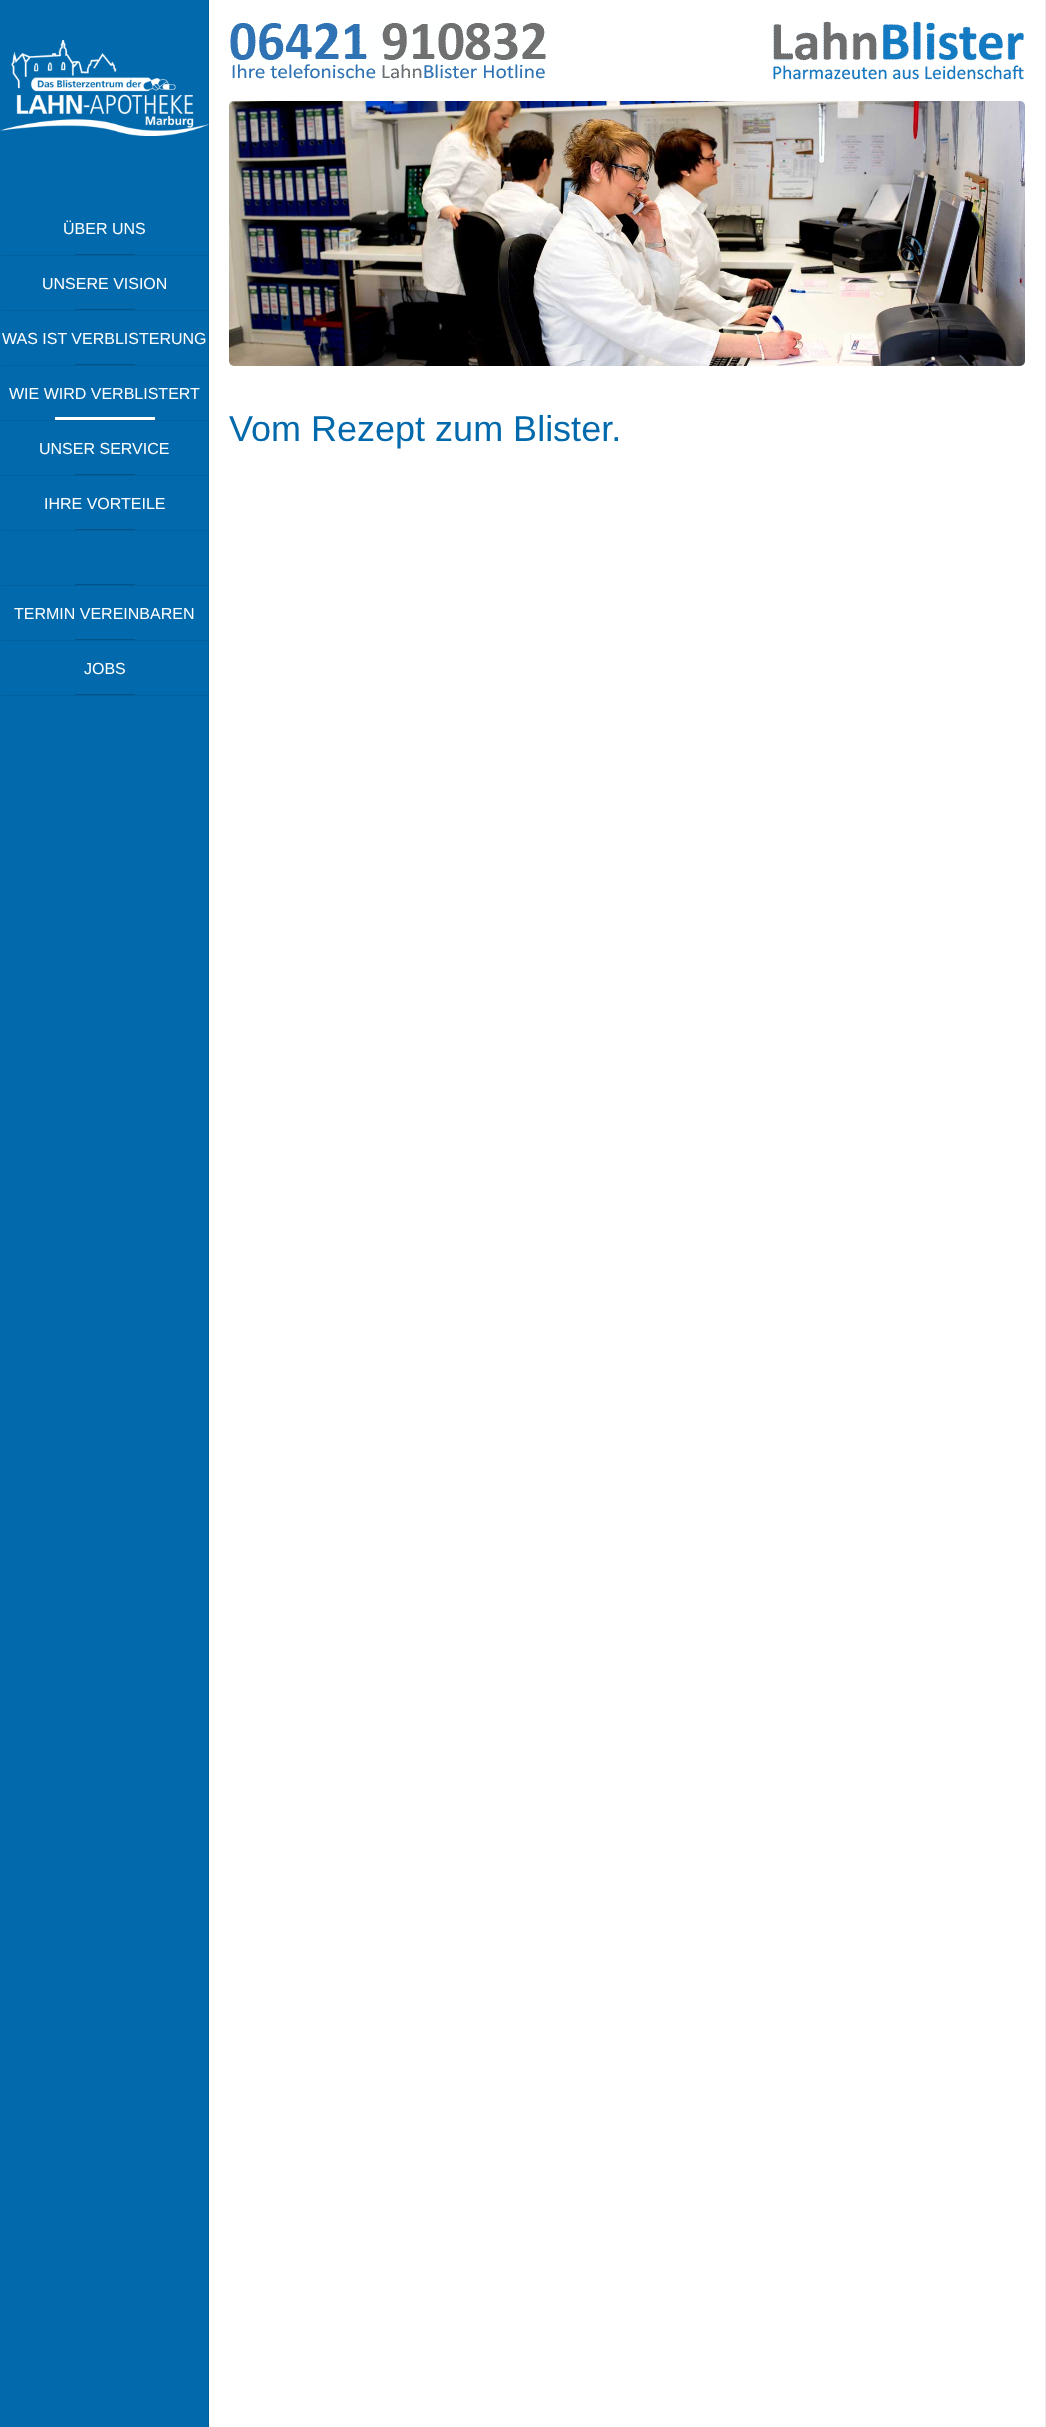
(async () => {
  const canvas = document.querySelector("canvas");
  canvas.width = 1046;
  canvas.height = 2427;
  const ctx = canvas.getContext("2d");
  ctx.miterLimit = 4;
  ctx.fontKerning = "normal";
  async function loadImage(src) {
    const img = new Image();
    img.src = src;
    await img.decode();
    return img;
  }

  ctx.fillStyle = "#ffffff";
  ctx.fillRect(0, 0, 1046, 2427);
  ctx.fillStyle = "#0169ac";
  ctx.fillRect(0, 0, 209, 2427);
  ctx.drawImage(await loadImage("img/1.png"), 0, 40, 209, 96);
  for (const [x, y, w, h, color] of [
    [1, 255, 208, 1, "#01619e"],
    [75, 254, 60, 1, "#01548a"],
    [1, 310, 208, 1, "#01619e"],
    [75, 309, 60, 1, "#01548a"],
    [1, 365, 208, 1, "#01619e"],
    [75, 364, 60, 1, "#01548a"],
    [1, 420, 208, 1, "#01619e"],
    [55, 417, 100, 3, "#ffffff"],
    [1, 475, 208, 1, "#01619e"],
    [75, 474, 60, 1, "#01548a"],
    [1, 530, 208, 1, "#01619e"],
    [75, 529, 60, 1, "#01548a"],
    [1, 585, 208, 1, "#01619e"],
    [75, 584, 60, 1, "#01548a"],
    [1, 640, 208, 1, "#01619e"],
    [75, 639, 60, 1, "#01548a"],
    [1, 695, 208, 1, "#01619e"],
    [75, 694, 60, 1, "#01548a"],
    [208, 0, 1, 2427, "rgba(0, 0, 0, 0.08)"],
    [1045, 0, 1, 2427, "#ebebeb"],
  ]) {
    ctx.fillStyle = color;
    ctx.fillRect(x, y, w, h);
  }
  ctx.drawImage(await loadImage("img/2.png"), 230, 23, 316, 56);
  ctx.drawImage(await loadImage("img/3.png"), 773, 21, 251, 59);
  ctx.drawImage(await loadImage("img/4.png"), 229, 101, 796, 265);
  ctx.font = "16px Liberation Sans";
  ctx.fillStyle = "#ffffff";
  for (const [text, x, y] of [
    ["ÜBER UNS", 63, 234],
    ["UNSERE VISION", 42, 289],
    ["WAS IST VERBLISTERUNG", 2, 344],
    ["WIE WIRD VERBLISTERT", 9, 399],
    ["UNSER SERVICE", 39, 454],
    ["IHRE VORTEILE", 44, 509],
    ["TERMIN VEREINBAREN", 14, 619],
    ["JOBS", 84, 674],
  ]) {
    ctx.fillText(text, x, y);
  }
  ctx.font = "36px Liberation Sans";
  ctx.fillStyle = "#0169ac";
  ctx.fillText("Vom Rezept zum Blister.", 229, 441);
})();
